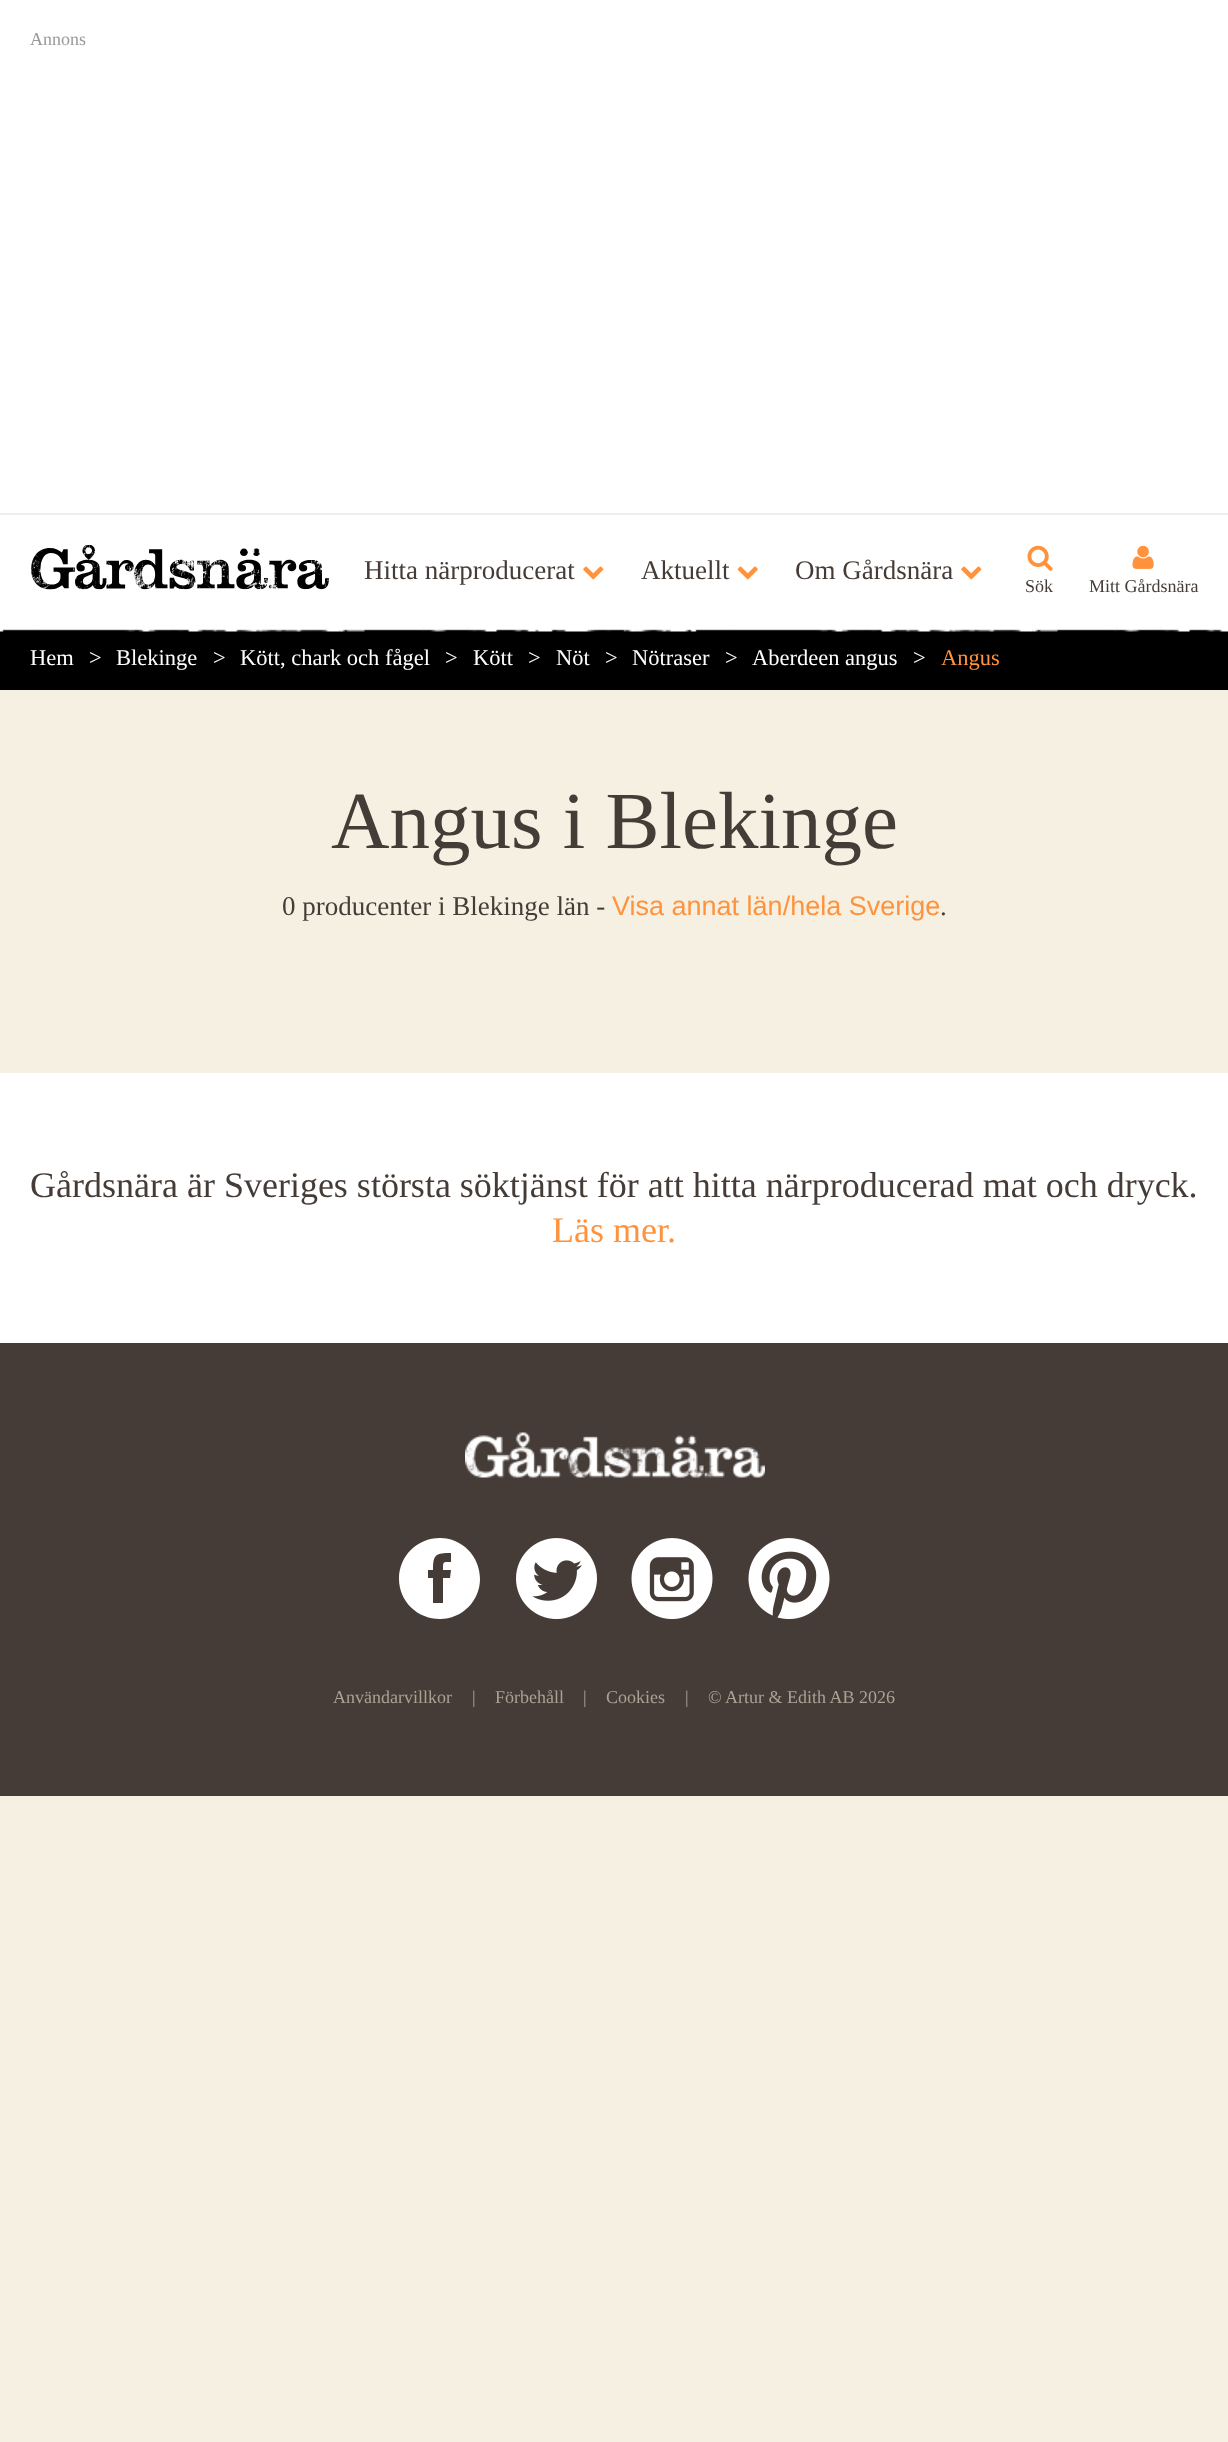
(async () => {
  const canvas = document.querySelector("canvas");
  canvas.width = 1228;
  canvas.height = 2442;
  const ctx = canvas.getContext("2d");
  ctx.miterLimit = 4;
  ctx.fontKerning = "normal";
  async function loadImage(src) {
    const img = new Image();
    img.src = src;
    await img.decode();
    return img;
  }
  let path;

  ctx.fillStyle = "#f5f0e2";
  ctx.fillRect(0, 0, 1228, 2442);
  ctx.fillStyle = "#000000";
  ctx.fillRect(0, 629, 1228, 61);
  ctx.fillStyle = "rgba(0, 0, 0, 0.5)";
  ctx.filter = "blur(7.5px)";
  ctx.beginPath();
  ctx.rect(0, 515, 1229, 112);
  ctx.fill();
  ctx.filter = "none";
  for (const [x, y, w, h, color] of [
    [0, 0, 1228, 513, "#ffffff"],
    [0, 513, 1228, 2, "#eeeeee"],
    [0, 515, 1228, 112, "#ffffff"],
  ]) {
    ctx.fillStyle = color;
    ctx.fillRect(x, y, w, h);
  }
  ctx.drawImage(await loadImage("img/1.png"), 31, 545, 298, 45);
  ctx.drawImage(await loadImage("img/2.png"), 583, 566, 21, 14);
  ctx.drawImage(await loadImage("img/3.png"), 737, 566, 21, 14);
  ctx.drawImage(await loadImage("img/2.png"), 961, 566, 21, 14);
  ctx.drawImage(await loadImage("img/4.png"), 1027, 545, 26, 26);
  ctx.drawImage(await loadImage("img/5.png"), 1132, 545, 22, 24);
  ctx.drawImage(await loadImage("img/6.png"), 0, 627, 1228, 5);
  ctx.fillRect(0, 1073, 1228, 270);
  ctx.fillStyle = "#453c37";
  ctx.fillRect(0, 1343, 1228, 453);
  ctx.drawImage(await loadImage("img/7.png"), 465, 1432, 300, 46);
  ctx.fillStyle = "#ffffff";
  path = new Path2D("M440 1538C417 1538 399 1556 399 1579C399 1601 417 1619 440 1619C462 1619 480 1601 480 1579C480 1556 462 1538 440 1538ZM450 1578H443V1603H433V1578H428V1570H433C433 1554 436 1553 451 1553V1562C443 1562 443 1561 443 1570H451Z");
  ctx.fill(path);
  ctx.drawImage(await loadImage("img/8.png"), 516, 1538, 81, 82);
  ctx.drawImage(await loadImage("img/9.png"), 631, 1538, 82, 82);
  ctx.drawImage(await loadImage("img/10.png"), 748, 1538, 82, 82);
  ctx.font = "18px Liberation Serif";
  ctx.fillStyle = "#999999";
  ctx.fillText("Annons", 30, 45);
  ctx.font = "27px Liberation Serif";
  ctx.fillStyle = "#453c37";
  for (const [text, x, y] of [
    ["Hitta närproducerat", 364, 579],
    ["Aktuellt", 641, 579],
    ["Om Gårdsnära", 795, 579],
  ]) {
    ctx.fillText(text, x, y);
  }
  ctx.font = "18px Liberation Serif";
  ctx.fillText("Sök", 1025, 592);
  ctx.fillText("Mitt Gårdsnära", 1089, 592);
  ctx.font = "22.5px Liberation Serif";
  ctx.fillStyle = "#ffffff";
  for (const [text, x, y] of [
    ["Hem", 30, 665],
    [">", 89, 665],
    ["Blekinge", 116, 665],
    [">", 213, 665],
    ["Kött, chark och fågel", 240, 665],
    [">", 445, 665],
    ["Kött", 473, 665],
    [">", 528, 665],
    ["Nöt", 556, 665],
    [">", 605, 665],
    ["Nötraser", 632, 665],
    [">", 725, 665],
    ["Aberdeen angus", 752, 665],
    [">", 913, 665],
  ]) {
    ctx.fillText(text, x, y);
  }
  ctx.fillStyle = "#ff933d";
  ctx.fillText("Angus", 941, 665);
  ctx.font = "81px Liberation Serif";
  ctx.fillStyle = "#453c37";
  ctx.fillText("Angus i Blekinge", 331, 848);
  ctx.font = "27px Liberation Serif";
  ctx.fillText("0 producenter i Blekinge län -", 282, 915);
  ctx.font = "27px Liberation Sans";
  ctx.fillStyle = "#ff933d";
  ctx.fillText("Visa annat län/hela Sverige", 612, 915);
  ctx.font = "27px Liberation Serif";
  ctx.fillStyle = "#453c37";
  ctx.fillText(".", 940, 915);
  ctx.font = "36px Liberation Serif";
  ctx.fillText("Gårdsnära är Sveriges största söktjänst för att hitta närproducerad mat och dryck.", 30, 1197);
  ctx.fillStyle = "#ff933d";
  ctx.fillText("Läs mer.", 552, 1242);
  ctx.font = "18px Liberation Serif";
  ctx.fillStyle = "#aba195";
  for (const [text, x, y] of [
    ["Användarvillkor", 333, 1703],
    ["|", 472, 1703],
    ["Förbehåll", 495, 1703],
    ["|", 583, 1703],
    ["Cookies", 606, 1703],
    ["|", 685, 1703],
    ["©", 708, 1703],
    ["Artur & Edith AB 2026", 725, 1703],
  ]) {
    ctx.fillText(text, x, y);
  }
})();
